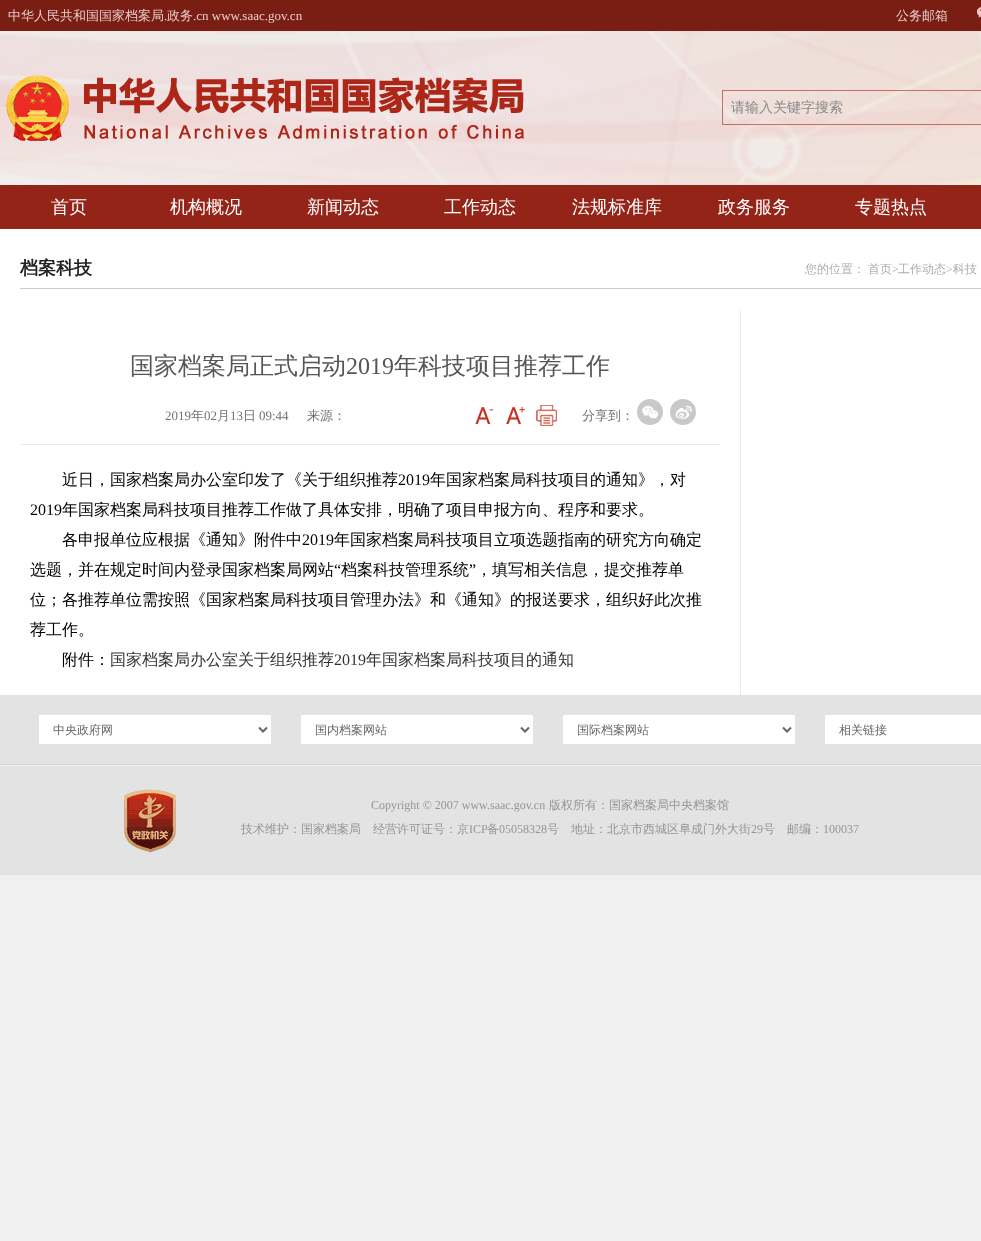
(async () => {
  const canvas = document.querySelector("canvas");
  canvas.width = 981;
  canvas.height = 1241;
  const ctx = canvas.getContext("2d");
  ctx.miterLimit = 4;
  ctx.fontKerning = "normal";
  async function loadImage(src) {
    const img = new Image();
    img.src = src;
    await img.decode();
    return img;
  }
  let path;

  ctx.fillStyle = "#f0f0f0";
  ctx.fillRect(0, 0, 981, 1241);
  ctx.drawImage(await loadImage("img/1.png"), 0, 31, 981, 154);
  ctx.fillStyle = "#7a1e14";
  ctx.fillRect(0, 0, 981, 31);
  ctx.drawImage(await loadImage("img/2.png"), 977, 7, 4, 11);
  ctx.drawImage(await loadImage("img/3.png"), 6, 75, 518, 66);
  ctx.strokeStyle = "#c46f64";
  ctx.strokeRect(722.5, 90.5, 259, 34);
  for (const [x, y, w, h, color] of [
    [0, 185, 981, 44, "#952418"],
    [0, 229, 981, 466, "#ffffff"],
    [20, 288, 961, 1, "#cbcbcb"],
    [740, 309, 1, 386, "#ebebeb"],
    [20, 444, 700, 1, "#eaeaea"],
  ]) {
    ctx.fillStyle = color;
    ctx.fillRect(x, y, w, h);
  }
  ctx.drawImage(await loadImage("img/4.png"), 475, 407, 19, 18);
  ctx.drawImage(await loadImage("img/5.png"), 506, 406, 19, 19);
  ctx.drawImage(await loadImage("img/6.png"), 536, 405, 21, 21);
  ctx.fillStyle = "#c9c9c9";
  ctx.beginPath();
  ctx.arc(650, 412, 13, 0, Math.PI * 2);
  ctx.fill();
  ctx.drawImage(await loadImage("img/7.png"), 642, 405, 17, 14);
  ctx.beginPath();
  ctx.arc(683, 412, 13, 0, Math.PI * 2);
  ctx.fill();
  ctx.drawImage(await loadImage("img/8.png"), 675, 405, 17, 14);
  for (const [x, y, w, h, color] of [
    [0, 695, 981, 69, "#e3e3e3"],
    [0, 764, 981, 1, "#d4d4d4"],
    [39, 715, 232, 29, "#ffffff"],
  ]) {
    ctx.fillStyle = color;
    ctx.fillRect(x, y, w, h);
  }
  path = new Path2D("M259 727.5L263 731.5L267 727.5");
  ctx.strokeStyle = "#666666";
  ctx.lineWidth = 2;
  ctx.stroke(path);
  ctx.fillRect(301, 715, 232, 29);
  path = new Path2D("M521 727.5L525 731.5L529 727.5");
  ctx.stroke(path);
  ctx.fillRect(563, 715, 232, 29);
  path = new Path2D("M783 727.5L787 731.5L791 727.5");
  ctx.stroke(path);
  ctx.fillRect(825, 715, 156, 29);
  ctx.fillStyle = "#e3e3e3";
  ctx.fillRect(0, 766, 981, 109);
  ctx.drawImage(await loadImage("img/9.png"), 124, 789, 52, 64);
  ctx.font = "500 13px WenQuanYi Zen Hei";
  ctx.fillStyle = "#e6cbcb";
  ctx.fillText("中华人民共和国国家档案局", 8, 20);
  ctx.font = "13px Liberation Serif";
  ctx.fillText(".", 164, 20);
  ctx.font = "500 13px WenQuanYi Zen Hei";
  ctx.fillText("政务", 167, 20);
  ctx.font = "13px Liberation Serif";
  ctx.fillText(".cn www.saac.gov.cn", 193, 20);
  ctx.font = "500 13px WenQuanYi Zen Hei";
  ctx.fillText("公务邮箱", 896, 20);
  ctx.font = "500 14px WenQuanYi Zen Hei";
  ctx.fillStyle = "#898989";
  ctx.fillText("请输入关键字搜索", 731, 112);
  ctx.font = "500 18px WenQuanYi Zen Hei";
  ctx.fillStyle = "#ffffff";
  for (const [text, x, y] of [
    ["首页", 51, 213],
    ["机构概况", 170, 213],
    ["新闻动态", 307, 213],
    ["工作动态", 444, 213],
    ["法规标准库", 572, 213],
    ["政务服务", 718, 213],
    ["专题热点", 855, 213],
  ]) {
    ctx.fillText(text, x, y);
  }
  ctx.font = "bold 18px WenQuanYi Zen Hei";
  ctx.fillStyle = "#222222";
  ctx.fillText("档案科技", 20, 274);
  ctx.font = "500 12px WenQuanYi Zen Hei";
  ctx.fillStyle = "#acacac";
  ctx.fillText("您的位置：", 805, 273);
  ctx.fillText("首页", 868, 273);
  ctx.font = "12px Liberation Serif";
  ctx.fillText(">", 892, 273);
  ctx.font = "500 12px WenQuanYi Zen Hei";
  ctx.fillText("工作动态", 898, 273);
  ctx.font = "12px Liberation Serif";
  ctx.fillText(">", 946, 273);
  ctx.font = "500 12px WenQuanYi Zen Hei";
  ctx.fillText("科技", 953, 273);
  ctx.font = "500 24px WenQuanYi Zen Hei";
  ctx.fillStyle = "#565656";
  ctx.fillText("国家档案局正式启动", 130, 374);
  ctx.font = "24px Liberation Serif";
  ctx.fillText("2019", 346, 374);
  ctx.font = "500 24px WenQuanYi Zen Hei";
  ctx.fillText("年科技项目推荐工作", 394, 374);
  ctx.font = "13px Liberation Serif";
  ctx.fillStyle = "#727272";
  ctx.fillText("2019", 165, 420);
  ctx.font = "500 13px WenQuanYi Zen Hei";
  ctx.fillText("年", 191, 420);
  ctx.font = "13px Liberation Serif";
  ctx.fillText("02", 204, 420);
  ctx.font = "500 13px WenQuanYi Zen Hei";
  ctx.fillText("月", 217, 420);
  ctx.font = "13px Liberation Serif";
  ctx.fillText("13", 230, 420);
  ctx.font = "500 13px WenQuanYi Zen Hei";
  ctx.fillText("日", 243, 420);
  ctx.font = "13px Liberation Serif";
  ctx.fillText("09:44", 259, 420);
  ctx.font = "500 13px WenQuanYi Zen Hei";
  ctx.fillText("来源：", 307, 420);
  ctx.fillText("分享到：", 582, 420);
  ctx.font = "500 16px WenQuanYi Zen Hei";
  ctx.fillStyle = "#000000";
  ctx.fillText("近日，国家档案局办公室印发了《关于组织推荐", 62, 485);
  ctx.font = "16px Liberation Serif";
  ctx.fillText("2019", 398, 485);
  ctx.font = "500 16px WenQuanYi Zen Hei";
  ctx.fillText("年国家档案局科技项目的通知》，对", 430, 485);
  ctx.font = "16px Liberation Serif";
  ctx.fillText("2019", 30, 515);
  ctx.font = "500 16px WenQuanYi Zen Hei";
  ctx.fillText("年国家档案局科技项目推荐工作做了具体安排，明确了项目申报方向、程序和要求。", 62, 515);
  ctx.fillText("各申报单位应根据《通知》附件中", 62, 545);
  ctx.font = "16px Liberation Serif";
  ctx.fillText("2019", 302, 545);
  ctx.font = "500 16px WenQuanYi Zen Hei";
  ctx.fillText("年国家档案局科技项目立项选题指南的研究方向确定", 334, 545);
  ctx.fillText("选题，并在规定时间内登录国家档案局网站", 30, 575);
  ctx.font = "16px Liberation Serif";
  ctx.fillText("“", 334, 575);
  ctx.font = "500 16px WenQuanYi Zen Hei";
  ctx.fillText("档案科技管理系统", 341, 575);
  ctx.font = "16px Liberation Serif";
  ctx.fillText("”", 469, 575);
  ctx.font = "500 16px WenQuanYi Zen Hei";
  for (const [text, x, y] of [
    ["，填写相关信息，提交推荐单", 476, 575],
    ["位；各推荐单位需按照《国家档案局科技项目管理办法》和《通知》的报送要求，组织好此次推", 30, 605],
    ["荐工作。", 30, 635],
    ["附件：", 62, 665],
  ]) {
    ctx.fillText(text, x, y);
  }
  ctx.fillStyle = "#333333";
  ctx.fillText("国家档案局办公室关于组织推荐", 110, 665);
  ctx.font = "16px Liberation Serif";
  ctx.fillText("2019", 334, 665);
  ctx.font = "500 16px WenQuanYi Zen Hei";
  ctx.fillText("年国家档案局科技项目的通知", 366, 665);
  ctx.font = "500 12px WenQuanYi Zen Hei";
  ctx.fillStyle = "#666666";
  for (const [text, x, y] of [
    ["中央政府网", 53, 734],
    ["国内档案网站", 315, 734],
    ["国际档案网站", 577, 734],
    ["相关链接", 839, 734],
  ]) {
    ctx.fillText(text, x, y);
  }
  ctx.font = "12px Liberation Serif";
  ctx.fillStyle = "#959595";
  ctx.fillText("Copyright © 2007 www.saac.gov.cn", 371, 809);
  ctx.font = "500 12px WenQuanYi Zen Hei";
  ctx.fillText("版权所有：国家档案局中央档案馆", 549, 809);
  ctx.fillText("技术维护：国家档案局　经营许可证号：京", 241, 833);
  ctx.font = "12px Liberation Serif";
  ctx.fillText("ICP", 469, 833);
  ctx.font = "500 12px WenQuanYi Zen Hei";
  ctx.fillText("备", 487, 833);
  ctx.font = "12px Liberation Serif";
  ctx.fillText("05058328", 499, 833);
  ctx.font = "500 12px WenQuanYi Zen Hei";
  ctx.fillText("号", 547, 833);
  ctx.fillText("地址：北京市西城区阜成门外大街", 571, 833);
  ctx.font = "12px Liberation Serif";
  ctx.fillText("29", 751, 833);
  ctx.font = "500 12px WenQuanYi Zen Hei";
  ctx.fillText("号　邮编：", 763, 833);
  ctx.font = "12px Liberation Serif";
  ctx.fillText("100037", 823, 833);
})();
